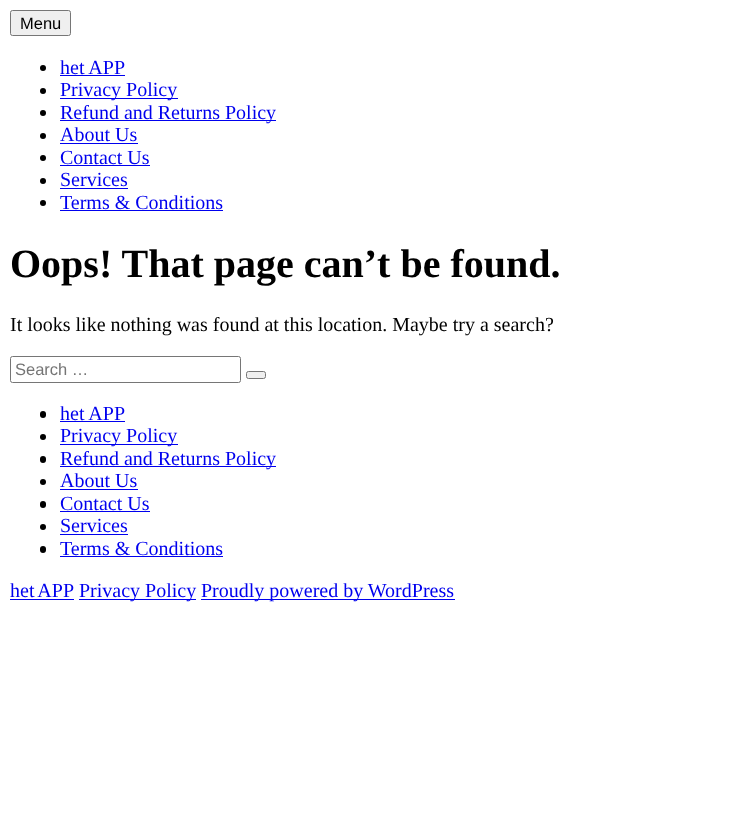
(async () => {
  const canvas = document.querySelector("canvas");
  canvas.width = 733;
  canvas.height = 834;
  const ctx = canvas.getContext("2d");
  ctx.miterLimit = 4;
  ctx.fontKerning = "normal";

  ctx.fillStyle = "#ffffff";
  ctx.fillRect(0, 0, 733, 834);
  ctx.fillStyle = "#efefef";
  ctx.beginPath();
  ctx.roundRect(10.5, 10.5, 60, 25, 2);
  ctx.fill();
  ctx.strokeStyle = "#767676";
  ctx.stroke();
  ctx.fillStyle = "#000000";
  ctx.beginPath();
  ctx.arc(43, 68, 3, 0, Math.PI * 2);
  ctx.fill();
  ctx.fillStyle = "#0000ee";
  ctx.fillRect(60, 75, 65, 1);
  ctx.fillStyle = "#000000";
  ctx.beginPath();
  ctx.arc(43, 91, 3, 0, Math.PI * 2);
  ctx.fill();
  ctx.fillStyle = "#0000ee";
  ctx.fillRect(60, 98, 118, 1);
  ctx.fillStyle = "#000000";
  ctx.beginPath();
  ctx.arc(43, 113, 3, 0, Math.PI * 2);
  ctx.fill();
  ctx.fillStyle = "#0000ee";
  ctx.fillRect(60, 120, 216, 1);
  ctx.fillStyle = "#000000";
  ctx.beginPath();
  ctx.arc(43, 136, 3, 0, Math.PI * 2);
  ctx.fill();
  ctx.fillStyle = "#0000ee";
  ctx.fillRect(60, 143, 78, 1);
  ctx.fillStyle = "#000000";
  ctx.beginPath();
  ctx.arc(43, 158, 3, 0, Math.PI * 2);
  ctx.fill();
  ctx.fillStyle = "#0000ee";
  ctx.fillRect(60, 165, 90, 1);
  ctx.fillStyle = "#000000";
  ctx.beginPath();
  ctx.arc(43, 181, 3, 0, Math.PI * 2);
  ctx.fill();
  ctx.fillStyle = "#0000ee";
  ctx.fillRect(60, 188, 68, 1);
  ctx.fillStyle = "#000000";
  ctx.beginPath();
  ctx.arc(43, 203, 3, 0, Math.PI * 2);
  ctx.fill();
  ctx.fillStyle = "#0000ee";
  ctx.fillRect(60, 210, 163, 1);
  ctx.beginPath();
  ctx.roundRect(10.5, 356.5, 230, 26, 2);
  ctx.stroke();
  ctx.fillStyle = "#efefef";
  ctx.beginPath();
  ctx.roundRect(246.5, 371.5, 19, 7, 2);
  ctx.fill();
  ctx.stroke();
  ctx.fillStyle = "#000000";
  ctx.beginPath();
  ctx.roundRect(40, 411, 6, 7, 3);
  ctx.fill();
  ctx.fillStyle = "#0000ee";
  ctx.fillRect(60, 421, 65, 1);
  ctx.fillStyle = "#000000";
  ctx.beginPath();
  ctx.arc(43, 437, 3, 0, Math.PI * 2);
  ctx.fill();
  ctx.fillStyle = "#0000ee";
  ctx.fillRect(60, 444, 118, 1);
  ctx.fillStyle = "#000000";
  ctx.beginPath();
  ctx.roundRect(40, 456, 6, 7, 3);
  ctx.fill();
  ctx.fillStyle = "#0000ee";
  ctx.fillRect(60, 466, 216, 1);
  ctx.fillStyle = "#000000";
  ctx.beginPath();
  ctx.arc(43, 482, 3, 0, Math.PI * 2);
  ctx.fill();
  ctx.fillStyle = "#0000ee";
  ctx.fillRect(60, 489, 78, 1);
  ctx.fillStyle = "#000000";
  ctx.beginPath();
  ctx.roundRect(40, 501, 6, 7, 3);
  ctx.fill();
  ctx.fillStyle = "#0000ee";
  ctx.fillRect(60, 511, 90, 1);
  ctx.fillStyle = "#000000";
  ctx.beginPath();
  ctx.arc(43, 527, 3, 0, Math.PI * 2);
  ctx.fill();
  ctx.fillStyle = "#0000ee";
  ctx.fillRect(60, 534, 68, 1);
  ctx.fillStyle = "#000000";
  ctx.beginPath();
  ctx.roundRect(40, 546, 6, 7, 3);
  ctx.fill();
  for (const [x, y, w, h, color] of [
    [60, 556, 163, 1, "#0000ee"],
    [10, 599, 64, 1, "#0000ee"],
    [79, 599, 117, 1, "#0000ee"],
    [201, 599, 254, 1, "#0000ee"],
  ]) {
    ctx.fillStyle = color;
    ctx.fillRect(x, y, w, h);
  }
  ctx.font = "16.5px Liberation Sans";
  ctx.fillStyle = "#000000";
  ctx.fillText("Menu", 20, 29);
  ctx.font = "20px Liberation Serif";
  ctx.fillStyle = "#0000ee";
  for (const [text, x, y] of [
    ["het APP", 60, 74],
    ["Privacy Policy", 60, 96],
    ["Refund and Returns Policy", 60, 119],
    ["About Us", 60, 141],
    ["Contact Us", 60, 164],
    ["Services", 60, 186],
    ["Terms & Conditions", 60, 209],
  ]) {
    ctx.fillText(text, x, y);
  }
  ctx.font = "bold 40px Liberation Serif";
  ctx.fillStyle = "#000000";
  ctx.fillText("Oops! That page can’t be found.", 10, 277);
  ctx.font = "20px Liberation Serif";
  ctx.fillText("It looks like nothing was found at this location. Maybe try a search?", 10, 331);
  ctx.font = "16.5px Liberation Sans";
  ctx.fillStyle = "#757575";
  ctx.fillText("Search …", 15, 375);
  ctx.font = "20px Liberation Serif";
  ctx.fillStyle = "#0000ee";
  for (const [text, x, y] of [
    ["het APP", 60, 420],
    ["Privacy Policy", 60, 442],
    ["Refund and Returns Policy", 60, 465],
    ["About Us", 60, 487],
    ["Contact Us", 60, 510],
    ["Services", 60, 532],
    ["Terms & Conditions", 60, 555],
  ]) {
    ctx.fillText(text, x, y);
  }
  ctx.wordSpacing = "-1px";
  ctx.fillText("het APP", 10, 597);
  ctx.wordSpacing = "0px";
  ctx.fillText("Privacy Policy", 79, 597);
  ctx.fillText("Proudly powered by WordPress", 201, 597);
})();
